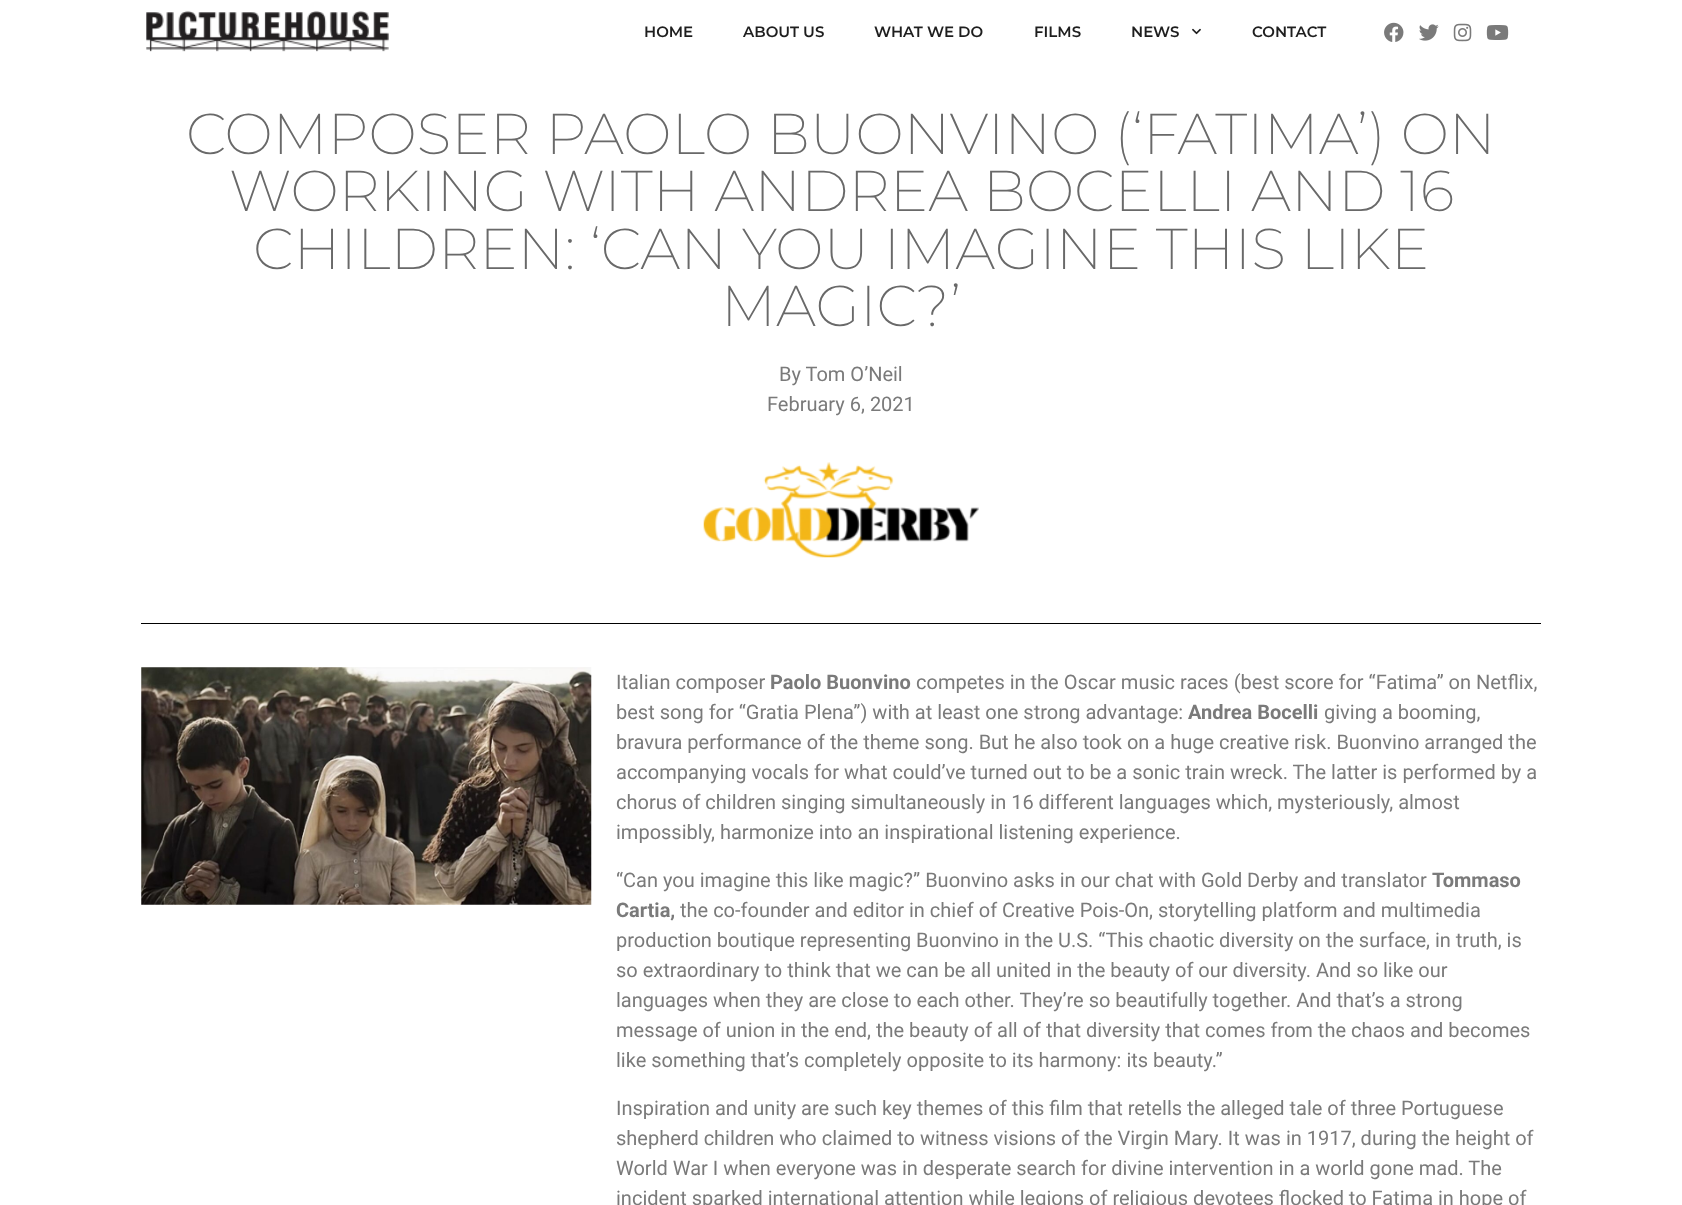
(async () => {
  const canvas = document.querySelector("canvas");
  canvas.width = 1682;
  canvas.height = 1205;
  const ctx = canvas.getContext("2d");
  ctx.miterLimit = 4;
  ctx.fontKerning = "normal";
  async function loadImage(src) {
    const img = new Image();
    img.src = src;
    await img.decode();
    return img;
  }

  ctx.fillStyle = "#ffffff";
  ctx.fillRect(0, 0, 1682, 1205);
  ctx.drawImage(await loadImage("img/1.png"), 146, 10, 243, 42);
  ctx.drawImage(await loadImage("img/2.png"), 1192, 28, 9, 7);
  ctx.drawImage(await loadImage("img/3.png"), 1384, 22, 20, 20);
  ctx.drawImage(await loadImage("img/4.png"), 1419, 24, 20, 17);
  ctx.drawImage(await loadImage("img/5.png"), 1453, 23, 19, 19);
  ctx.drawImage(await loadImage("img/6.png"), 1486, 25, 23, 15);
  ctx.drawImage(await loadImage("img/7.png"), 703, 462, 276, 96);
  ctx.fillStyle = "#000000";
  ctx.fillRect(141, 623, 1400, 1);
  ctx.drawImage(await loadImage("img/8.png"), 141, 667, 451, 238);
  ctx.font = "600 15px Montserrat";
  ctx.fillStyle = "#1e1e1e";
  for (const [text, x, y] of [
    ["HOME", 644, 37],
    ["ABOUT US", 743, 37],
    ["WHAT WE DO", 874, 37],
    ["FILMS", 1034, 37],
    ["NEWS", 1131, 37],
    ["CONTACT", 1252, 37],
  ]) {
    ctx.fillText(text, x, y);
  }
  ctx.font = "200 57.5px Montserrat";
  ctx.fillStyle = "#696969";
  for (const [text, x, y] of [
    ["COMPOSER PAOLO BUONVINO (‘FATIMA’) ON", 186, 154],
    ["WORKING WITH ANDREA BOCELLI AND 16", 229, 211],
    ["CHILDREN: ‘CAN YOU IMAGINE THIS LIKE", 253, 269],
    ["MAGIC?’", 721, 326],
  ]) {
    ctx.fillText(text, x, y);
  }
  ctx.font = "20px Roboto";
  ctx.fillStyle = "#7a7a7a";
  for (const [text, x, y] of [
    ["By Tom O’Neil", 779, 381],
    ["February 6, 2021", 767, 411],
    ["Italian composer", 616, 689],
  ]) {
    ctx.fillText(text, x, y);
  }
  ctx.font = "bold 20px Roboto";
  ctx.fillText("Paolo Buonvino", 770, 689);
  ctx.font = "20px Roboto";
  ctx.fillText("competes in the Oscar music races (best score for “Fatima” on Netflix,", 916, 689);
  ctx.fillText("best song for “Gratia Plena”) with at least one strong advantage:", 616, 719);
  ctx.font = "bold 20px Roboto";
  ctx.fillText("Andrea Bocelli", 1188, 719);
  ctx.font = "20px Roboto";
  for (const [text, x, y] of [
    ["giving a booming,", 1324, 719],
    ["bravura performance of the theme song. But he also took on a huge creative risk. Buonvino arranged the", 616, 749],
    ["accompanying vocals for what could’ve turned out to be a sonic train wreck. The latter is performed by a", 616, 779],
    ["chorus of children singing simultaneously in 16 different languages which, mysteriously, almost", 616, 809],
    ["impossibly, harmonize into an inspirational listening experience.", 616, 839],
    ["“Can you imagine this like magic?” Buonvino asks in our chat with Gold Derby and translator", 616, 887],
  ]) {
    ctx.fillText(text, x, y);
  }
  ctx.font = "bold 20px Roboto";
  ctx.fillText("Tommaso", 1432, 887);
  ctx.fillText("Cartia,", 616, 917);
  ctx.font = "20px Roboto";
  for (const [text, x, y] of [
    ["the co-founder and editor in chief of Creative Pois-On, storytelling platform and multimedia", 680, 917],
    ["production boutique representing Buonvino in the U.S. “This chaotic diversity on the surface, in truth, is", 616, 947],
    ["so extraordinary to think that we can be all united in the beauty of our diversity. And so like our", 616, 977],
    ["languages when they are close to each other. They’re so beautifully together. And that’s a strong", 616, 1007],
    ["message of union in the end, the beauty of all of that diversity that comes from the chaos and becomes", 616, 1037],
    ["like something that’s completely opposite to its harmony: its beauty.”", 616, 1067],
    ["Inspiration and unity are such key themes of this film that retells the alleged tale of three Portuguese", 616, 1115],
    ["shepherd children who claimed to witness visions of the Virgin Mary. It was in 1917, during the height of", 616, 1145],
    ["World War I when everyone was in desperate search for divine intervention in a world gone mad. The", 616, 1175],
    ["incident sparked international attention while legions of religious devotees flocked to Fatima in hope of", 616, 1205],
  ]) {
    ctx.fillText(text, x, y);
  }
})();
